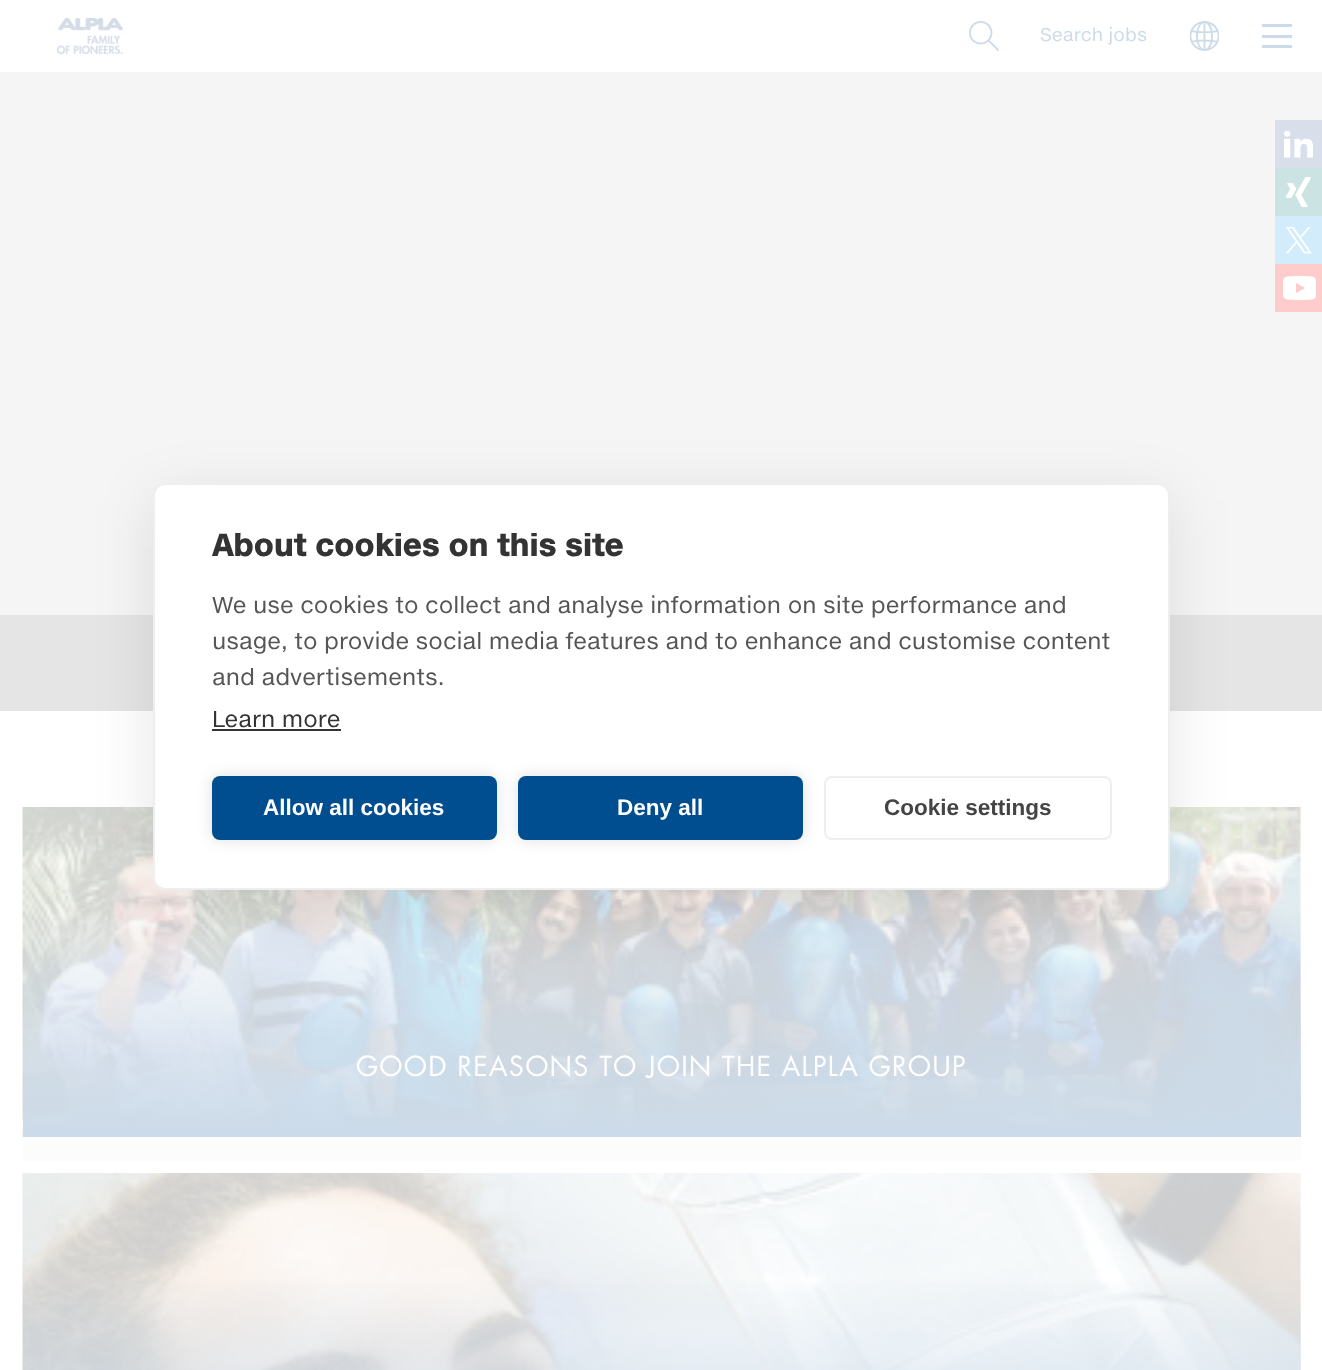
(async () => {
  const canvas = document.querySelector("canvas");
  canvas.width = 1322;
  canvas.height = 1370;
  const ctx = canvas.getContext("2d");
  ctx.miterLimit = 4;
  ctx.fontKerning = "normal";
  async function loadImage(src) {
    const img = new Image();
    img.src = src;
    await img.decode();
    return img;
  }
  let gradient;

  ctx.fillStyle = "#ffffff";
  ctx.fillRect(0, 0, 1322, 1370);
  ctx.drawImage(await loadImage("img/1.png"), 56, 18, 67, 36);
  ctx.drawImage(await loadImage("img/2.png"), 969, 21, 30, 30);
  ctx.drawImage(await loadImage("img/3.png"), 1190, 21, 29, 30);
  for (const [x, y, w, h, color] of [
    [1262, 35, 30, 3, "#ccdbe9"],
    [1262, 24, 30, 3, "#ccdbe9"],
    [1262, 45, 30, 3, "#ccdbe9"],
    [0, 72, 1322, 543, "#f5f5f5"],
    [0, 615, 1322, 96, "#e5e5e5"],
    [23, 807, 1278, 354, "#fcfcfc"],
  ]) {
    ctx.fillStyle = color;
    ctx.fillRect(x, y, w, h);
  }
  ctx.drawImage(await loadImage("img/8.png"), 22, 807, 1279, 330);
  gradient = ctx.createLinearGradient(662, 1134, 662, 807);
  gradient.addColorStop(0, "#ccdbe9");
  gradient.addColorStop(0.7, "rgba(204, 219, 233, 0)");
  ctx.fillStyle = gradient;
  ctx.fillRect(23, 915, 1278, 219);
  ctx.fillStyle = "rgba(0, 0, 0, 0.1)";
  ctx.filter = "blur(30px)";
  ctx.beginPath();
  ctx.roundRect(153, 498, 1017, 407, 12);
  ctx.fill();
  ctx.filter = "none";
  ctx.fillStyle = "#ffffff";
  ctx.beginPath();
  ctx.roundRect(154, 484, 1015, 405, 11);
  ctx.fill();
  ctx.strokeStyle = "#eeeeee";
  ctx.lineWidth = 2;
  ctx.stroke();
  ctx.fillStyle = "#333333";
  ctx.fillRect(212, 729, 129, 2);
  ctx.fillStyle = "rgba(0, 0, 0, 0.12)";
  ctx.filter = "blur(7.5px)";
  ctx.beginPath();
  ctx.roundRect(212, 776, 285, 64, 8);
  ctx.fill();
  ctx.filter = "none";
  ctx.fillStyle = "#004d90";
  ctx.beginPath();
  ctx.roundRect(212, 776, 285, 64, 8);
  ctx.fill();
  ctx.fillStyle = "rgba(0, 0, 0, 0.12)";
  ctx.filter = "blur(7.5px)";
  ctx.beginPath();
  ctx.roundRect(518, 776, 285, 64, 8);
  ctx.fill();
  ctx.filter = "none";
  ctx.fillStyle = "#004d90";
  ctx.beginPath();
  ctx.roundRect(518, 776, 285, 64, 8);
  ctx.fill();
  ctx.beginPath();
  ctx.roundRect(825, 777, 286, 62, 7);
  ctx.stroke();
  ctx.fillStyle = "#d8deea";
  ctx.fillRect(1275, 120, 47, 48);
  ctx.drawImage(await loadImage("img/4.png"), 1284, 131, 29, 27);
  ctx.fillStyle = "#cce3e3";
  ctx.fillRect(1275, 168, 47, 48);
  ctx.drawImage(await loadImage("img/5.png"), 1286, 177, 25, 30);
  ctx.fillStyle = "#d2ecfc";
  ctx.fillRect(1275, 216, 47, 48);
  ctx.drawImage(await loadImage("img/6.png"), 1286, 227, 26, 27);
  ctx.fillStyle = "#ffcccc";
  ctx.fillRect(1275, 264, 47, 48);
  ctx.drawImage(await loadImage("img/7.png"), 1283, 276, 33, 24);
  ctx.fillStyle = "#ccdbe9";
  ctx.fillRect(23, 1134, 1278, 3);
  ctx.fillStyle = "#f9f9f9";
  ctx.fillRect(1300, 1173, 1, 197);
  ctx.drawImage(await loadImage("img/9.png"), 22, 1173, 1279, 197);
  gradient = ctx.createLinearGradient(662, 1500, 662, 1173);
  gradient.addColorStop(0, "#ccdbe9");
  gradient.addColorStop(0.7, "rgba(204, 219, 233, 0)");
  ctx.fillStyle = gradient;
  ctx.fillRect(23, 1281, 1278, 89);
  ctx.font = "18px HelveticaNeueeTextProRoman";
  ctx.fillStyle = "#ccdbe9";
  ctx.fillText("Search jobs", 1040, 41);
  ctx.save();
  ctx.beginPath();
  ctx.rect(212, 533, 900, 243);
  ctx.clip();
  ctx.font = "bold 30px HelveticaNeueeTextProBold";
  ctx.fillStyle = "#333333";
  ctx.fillText("About cookies on this site", 212, 556);
  ctx.restore();
  ctx.font = "22.5px HelveticaNeueeTextProRoman";
  ctx.fillStyle = "#555555";
  for (const [text, x, y] of [
    ["We use cookies to collect and analyse information on site performance and", 212, 613],
    ["usage, to provide social media features and to enhance and customise content", 212, 649],
    ["and advertisements.", 212, 685],
  ]) {
    ctx.fillText(text, x, y);
  }
  ctx.fillStyle = "#333333";
  ctx.fillText("Learn more", 212, 727);
  ctx.font = "bold 22.5px Liberation Sans";
  ctx.fillStyle = "#ffffff";
  ctx.fillText("Allow all cookies", 263, 815);
  ctx.fillText("Deny all", 617, 815);
  ctx.fillStyle = "#444444";
  ctx.fillText("Cookie settings", 884, 815);
  ctx.letterSpacing = "1.2px";
  ctx.font = "27px Futura";
  ctx.fillStyle = "#ffffff";
  ctx.fillText("GOOD REASONS TO JOIN THE ALPLA GROUP", 356, 1076);
})();
